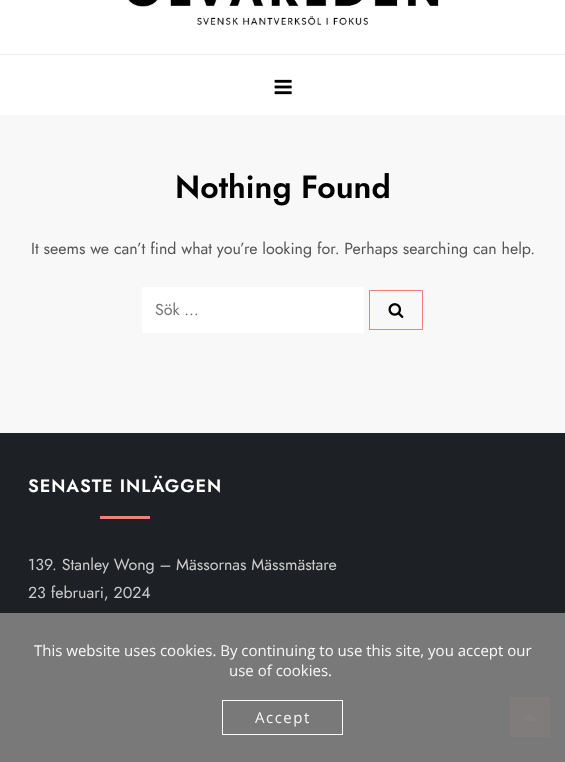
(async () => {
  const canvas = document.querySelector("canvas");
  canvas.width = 565;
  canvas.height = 762;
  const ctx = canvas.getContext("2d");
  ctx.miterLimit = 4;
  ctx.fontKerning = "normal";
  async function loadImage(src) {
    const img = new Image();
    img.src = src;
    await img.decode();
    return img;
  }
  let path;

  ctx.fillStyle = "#f8f8f8";
  ctx.fillRect(0, 0, 565, 762);
  ctx.fillStyle = "#ffffff";
  ctx.fillRect(0, 0, 565, 115);
  ctx.drawImage(await loadImage("img/1.png"), 128, 0, 311, 26);
  ctx.fillStyle = "#eeeeee";
  ctx.fillRect(0, 54, 565, 1);
  ctx.drawImage(await loadImage("img/2.png"), 274, 79, 18, 16);
  ctx.fillStyle = "#ffffff";
  ctx.fillRect(142, 287, 222, 46);
  ctx.strokeStyle = "#f37e7e";
  ctx.strokeRect(369.5, 290.5, 53, 39);
  ctx.drawImage(await loadImage("img/3.png"), 388, 303, 16, 15);
  for (const [x, y, w, h, color] of [
    [0, 433, 565, 180, "#1d2024"],
    [0, 613, 565, 149, "#797979"],
    [100, 516, 50, 3, "#f37e7e"],
    [510, 697, 40, 40, "#807c7c"],
  ]) {
    ctx.fillStyle = color;
    ctx.fillRect(x, y, w, h);
  }
  ctx.fillStyle = "#808080";
  path = new Path2D("M537 721H523L530 714Z");
  ctx.fill(path);
  ctx.strokeStyle = "rgba(255, 255, 255, 0.97)";
  ctx.strokeRect(222.5, 700.5, 120, 34);
  ctx.font = "600 32px Jost";
  ctx.fillStyle = "#000000";
  ctx.fillText("Nothing Found", 175, 198);
  ctx.font = "16px Jost";
  ctx.fillStyle = "#555555";
  ctx.fillText("It seems we can’t find what you’re looking for. Perhaps searching can help.", 31, 254);
  ctx.fillStyle = "#757575";
  ctx.fillText("Sök …", 155, 315);
  ctx.letterSpacing = "0.9px";
  ctx.font = "600 18px Jost";
  ctx.fillStyle = "#ffffff";
  ctx.fillText("SENASTE INLÄGGEN", 28, 492);
  ctx.letterSpacing = "0px";
  ctx.font = "16px Jost";
  ctx.fillStyle = "#cccccc";
  ctx.fillText("139. Stanley Wong – Mässornas Mässmästare", 28, 570);
  ctx.fillText("23 februari, 2024", 28, 598);
  ctx.font = "15px Open Sans";
  ctx.fillStyle = "#f8f8f8";
  ctx.fillText("This website uses cookies. By continuing to use this site, you accept our", 34, 656);
  ctx.fillText("use of cookies.", 229, 676);
  ctx.letterSpacing = "1.5px";
  ctx.fillText("Accept", 255, 723);
})();
